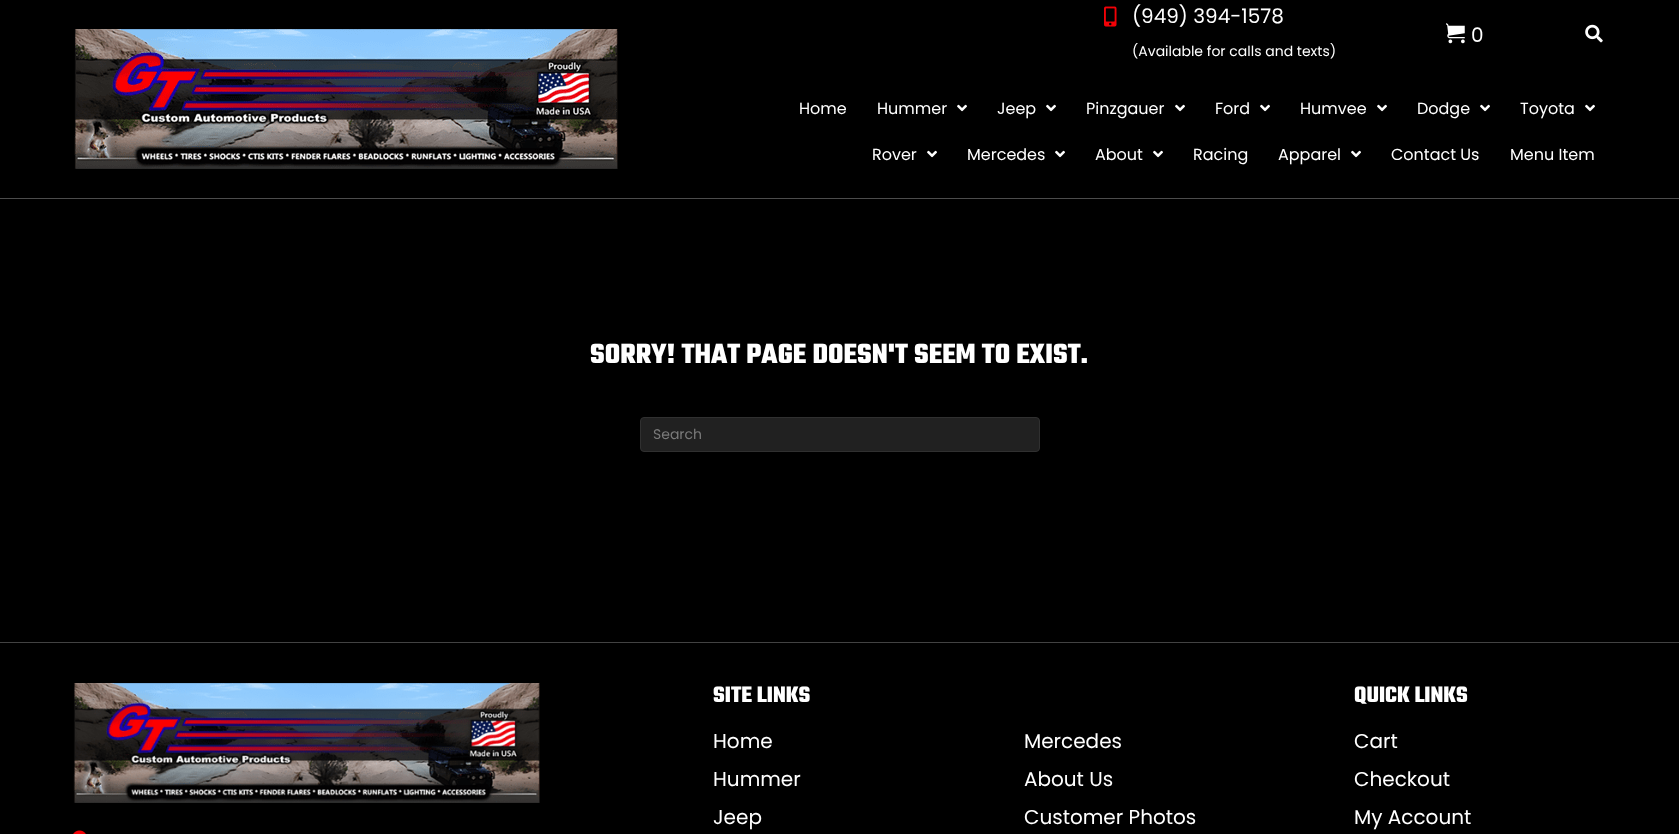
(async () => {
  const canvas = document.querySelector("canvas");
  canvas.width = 1679;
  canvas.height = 834;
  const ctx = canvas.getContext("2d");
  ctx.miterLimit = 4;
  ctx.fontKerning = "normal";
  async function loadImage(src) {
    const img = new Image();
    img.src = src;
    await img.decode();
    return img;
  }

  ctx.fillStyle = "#000000";
  ctx.fillRect(0, 0, 1679, 834);
  ctx.fillStyle = "#4c4c4c";
  ctx.fillRect(0, 198, 1679, 1);
  ctx.drawImage(await loadImage("img/1.png"), 74, 29, 544, 140);
  ctx.drawImage(await loadImage("img/2.png"), 1104, 6, 13, 21);
  ctx.drawImage(await loadImage("img/3.png"), 1446, 23, 19, 21);
  ctx.drawImage(await loadImage("img/4.png"), 1585, 24, 18, 19);
  ctx.drawImage(await loadImage("img/5.png"), 957, 104, 10, 8);
  ctx.drawImage(await loadImage("img/5.png"), 1046, 104, 10, 8);
  ctx.drawImage(await loadImage("img/5.png"), 1175, 104, 10, 8);
  ctx.drawImage(await loadImage("img/5.png"), 1260, 104, 10, 8);
  ctx.drawImage(await loadImage("img/5.png"), 1377, 104, 10, 8);
  ctx.drawImage(await loadImage("img/5.png"), 1480, 104, 10, 8);
  ctx.drawImage(await loadImage("img/5.png"), 1585, 104, 10, 8);
  ctx.drawImage(await loadImage("img/5.png"), 927, 150, 10, 8);
  ctx.drawImage(await loadImage("img/5.png"), 1055, 150, 10, 8);
  ctx.drawImage(await loadImage("img/5.png"), 1153, 150, 10, 8);
  ctx.drawImage(await loadImage("img/5.png"), 1351, 150, 10, 8);
  ctx.fillStyle = "#212121";
  ctx.beginPath();
  ctx.roundRect(640.5, 417.5, 399, 34, 3.5);
  ctx.fill();
  ctx.strokeStyle = "#303030";
  ctx.stroke();
  ctx.fillStyle = "#424242";
  ctx.fillRect(0, 642, 1679, 1);
  ctx.drawImage(await loadImage("img/6.png"), 73, 683, 467, 120);
  ctx.drawImage(await loadImage("img/7.png"), 73, 830, 13, 4);
  ctx.font = "20px Poppins";
  ctx.fillStyle = "#ffffff";
  ctx.fillText("(949) 394-1578", 1132, 23);
  ctx.font = "14px Poppins";
  ctx.fillText("(Available for calls and texts)", 1132, 56);
  ctx.font = "20px Poppins";
  ctx.fillText("0", 1471, 42);
  ctx.font = "16px Poppins";
  for (const [text, x, y] of [
    ["Home", 799, 114],
    ["Hummer", 877, 114],
    ["Jeep", 997, 114],
    ["Pinzgauer", 1086, 114],
    ["Ford", 1215, 114],
    ["Humvee", 1300, 114],
    ["Dodge", 1417, 114],
    ["Toyota", 1520, 114],
    ["Rover", 872, 160],
    ["Mercedes", 967, 160],
    ["About", 1095, 160],
    ["Racing", 1193, 160],
    ["Apparel", 1278, 160],
    ["Contact Us", 1391, 160],
    ["Menu Item", 1510, 160],
  ]) {
    ctx.fillText(text, x, y);
  }
  ctx.font = "300 30px Teko";
  ctx.fillText("SORRY! THAT PAGE DOESN'T SEEM TO EXIST.", 590, 363);
  ctx.font = "14px Poppins";
  ctx.fillStyle = "#7a7a7a";
  ctx.fillText("Search", 653, 439);
  ctx.font = "300 24px Teko";
  ctx.fillStyle = "#ffffff";
  ctx.fillText("SITE LINKS", 713, 702);
  ctx.font = "20px Poppins";
  for (const [text, x, y] of [
    ["Home", 713, 748],
    ["Mercedes", 1024, 748],
    ["Hummer", 713, 786],
    ["About Us", 1024, 786],
    ["Jeep", 713, 824],
    ["Customer Photos", 1024, 824],
  ]) {
    ctx.fillText(text, x, y);
  }
  ctx.font = "300 24px Teko";
  ctx.fillText("QUICK LINKS", 1354, 702);
  ctx.font = "20px Poppins";
  for (const [text, x, y] of [
    ["Cart", 1354, 748],
    ["Checkout", 1354, 786],
    ["My Account", 1354, 824],
  ]) {
    ctx.fillText(text, x, y);
  }
})();
